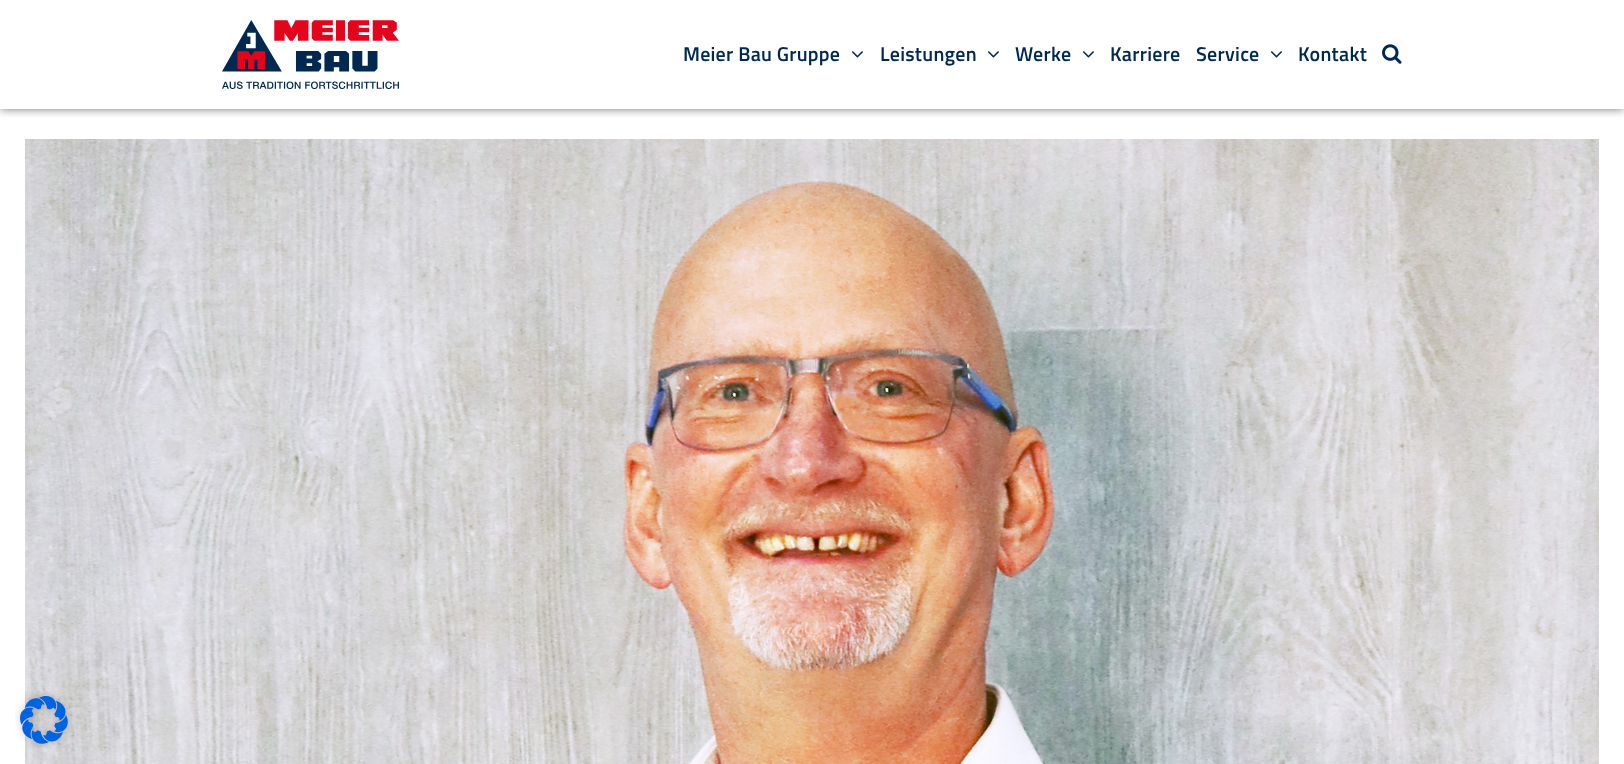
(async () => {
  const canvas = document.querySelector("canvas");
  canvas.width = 1624;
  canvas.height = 764;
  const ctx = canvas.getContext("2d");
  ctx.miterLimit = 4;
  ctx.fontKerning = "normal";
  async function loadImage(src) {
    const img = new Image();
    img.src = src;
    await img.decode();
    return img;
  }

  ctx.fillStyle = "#ffffff";
  ctx.fillRect(0, 0, 1624, 764);
  ctx.save();
  ctx.beginPath();
  ctx.rect(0, 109, 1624, 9);
  ctx.clip();
  ctx.fillStyle = "rgba(33, 33, 33, 0.64)";
  ctx.filter = "blur(5px)";
  ctx.beginPath();
  ctx.rect(0, 0, 1624, 109);
  ctx.fill();
  ctx.filter = "none";
  ctx.restore();
  ctx.drawImage(await loadImage("img/1.png"), 222, 20, 177, 69);
  ctx.drawImage(await loadImage("img/2.png"), 851, 51, 12, 7);
  ctx.drawImage(await loadImage("img/2.png"), 987, 51, 12, 7);
  ctx.drawImage(await loadImage("img/2.png"), 1082, 51, 12, 7);
  ctx.drawImage(await loadImage("img/2.png"), 1270, 51, 12, 7);
  ctx.drawImage(await loadImage("img/3.png"), 1382, 44, 20, 20);
  ctx.drawImage(await loadImage("img/4.png"), 25, 139, 1574, 625);
  ctx.drawImage(await loadImage("img/5.png"), 15, 691, 57, 57);
  ctx.letterSpacing = "0.25px";
  ctx.font = "600 20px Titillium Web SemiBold";
  ctx.fillStyle = "#002851";
  for (const [text, x, y] of [
    ["Meier Bau Gruppe", 683, 61],
    ["Leistungen", 880, 61],
    ["Werke", 1015, 61],
    ["Karriere", 1110, 61],
    ["Service", 1196, 61],
    ["Kontakt", 1298, 61],
  ]) {
    ctx.fillText(text, x, y);
  }
})();
